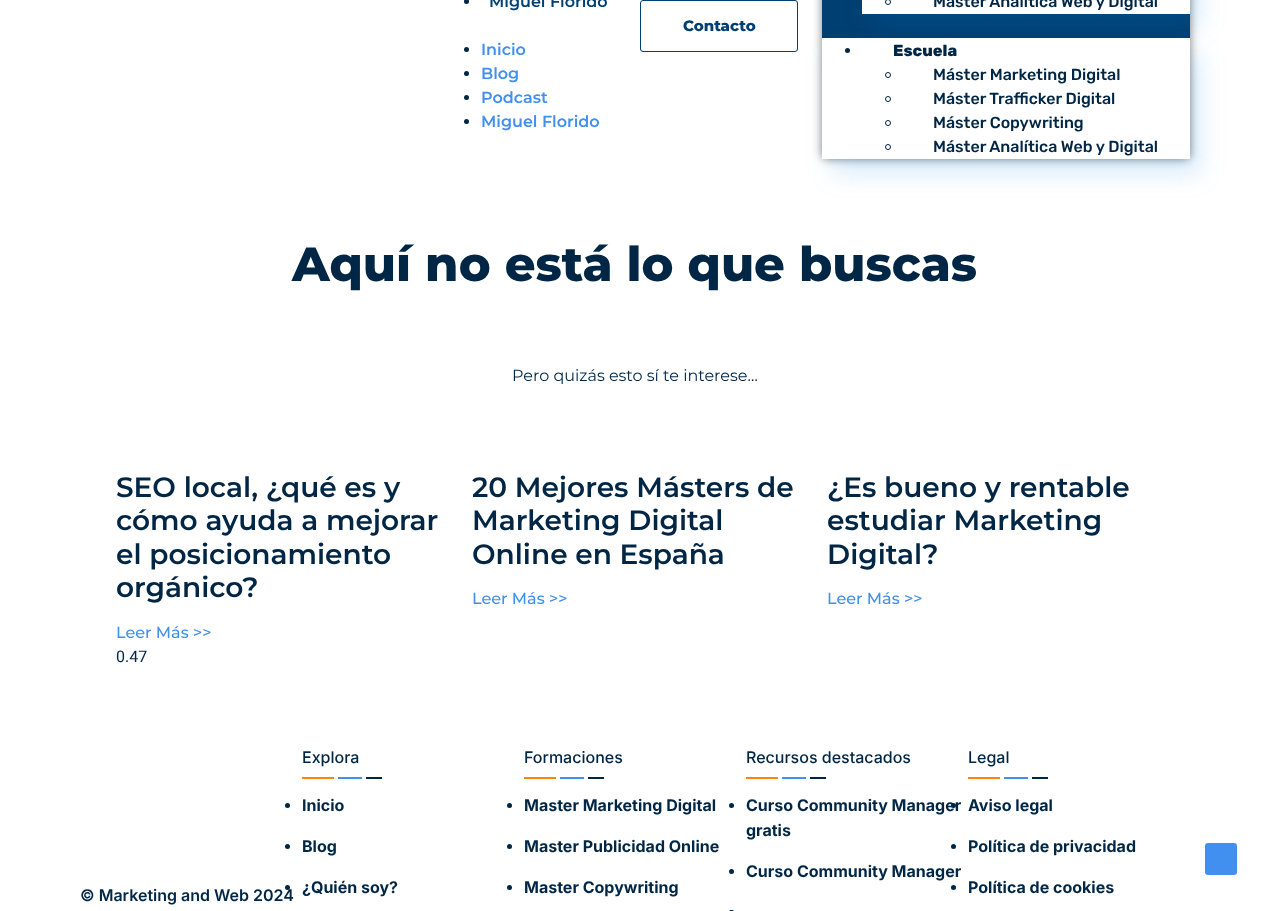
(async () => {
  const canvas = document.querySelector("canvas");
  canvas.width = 1269;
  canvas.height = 911;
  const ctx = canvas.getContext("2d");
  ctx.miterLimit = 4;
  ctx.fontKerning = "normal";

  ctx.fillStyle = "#ffffff";
  ctx.fillRect(0, 0, 1269, 911);
  ctx.fillStyle = "#002645";
  ctx.beginPath();
  ctx.arc(466.5, 1.5, 2.5, 0, Math.PI * 2);
  ctx.fill();
  ctx.beginPath();
  ctx.arc(466.5, 49.5, 2.5, 0, Math.PI * 2);
  ctx.fill();
  ctx.beginPath();
  ctx.arc(466.5, 73.5, 2.5, 0, Math.PI * 2);
  ctx.fill();
  ctx.beginPath();
  ctx.arc(466.5, 97.5, 2.5, 0, Math.PI * 2);
  ctx.fill();
  ctx.beginPath();
  ctx.arc(466.5, 121.5, 2.5, 0, Math.PI * 2);
  ctx.fill();
  ctx.beginPath();
  ctx.roundRect(640.5, 0.5, 157, 51, 2.5);
  ctx.strokeStyle = "#003f71";
  ctx.stroke();
  ctx.fillStyle = "rgba(0, 0, 0, 0.5)";
  ctx.filter = "blur(5px)";
  ctx.beginPath();
  ctx.roundRect(822, -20, 368, 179, 5);
  ctx.fill();
  ctx.filter = "none";
  ctx.fillStyle = "#003f71";
  ctx.fillRect(822, 0, 368, 38);
  ctx.fillStyle = "rgba(0, 128, 229, 0.15)";
  ctx.filter = "blur(12.5px)";
  ctx.beginPath();
  ctx.rect(872, -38, 328, 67);
  ctx.fill();
  ctx.filter = "none";
  ctx.fillStyle = "#ffffff";
  ctx.fillRect(862, 0, 328, 14);
  ctx.beginPath();
  ctx.arc(888, 2, 2.5, 0, Math.PI * 2);
  ctx.strokeStyle = "#002645";
  ctx.stroke();
  ctx.fillStyle = "rgba(0, 128, 229, 0.15)";
  ctx.filter = "blur(12.5px)";
  ctx.beginPath();
  ctx.rect(832, 53, 368, 121);
  ctx.fill();
  ctx.filter = "none";
  ctx.fillStyle = "#ffffff";
  ctx.fillRect(822, 38, 368, 121);
  ctx.fillStyle = "#002645";
  ctx.beginPath();
  ctx.arc(847.5, 50.5, 2.5, 0, Math.PI * 2);
  ctx.fill();
  ctx.beginPath();
  ctx.arc(888, 75, 2.5, 0, Math.PI * 2);
  ctx.stroke();
  ctx.beginPath();
  ctx.arc(888, 99, 2.5, 0, Math.PI * 2);
  ctx.stroke();
  ctx.beginPath();
  ctx.arc(888, 123, 2.5, 0, Math.PI * 2);
  ctx.stroke();
  ctx.beginPath();
  ctx.arc(888, 147, 2.5, 0, Math.PI * 2);
  ctx.stroke();
  ctx.fillStyle = "#418fef";
  ctx.beginPath();
  ctx.roundRect(1205, 843, 32, 32, 3);
  ctx.fill();
  for (const [x, y, w, h, color] of [
    [302, 777, 32, 2, "#ff840d"],
    [338, 777, 24, 2, "#418fef"],
    [366, 777, 16, 2, "#002645"],
  ]) {
    ctx.fillStyle = color;
    ctx.fillRect(x, y, w, h);
  }
  ctx.beginPath();
  ctx.arc(287.5, 805.5, 2.5, 0, Math.PI * 2);
  ctx.fill();
  ctx.beginPath();
  ctx.arc(287.5, 846.5, 2.5, 0, Math.PI * 2);
  ctx.fill();
  ctx.beginPath();
  ctx.arc(287.5, 887.5, 2.5, 0, Math.PI * 2);
  ctx.fill();
  for (const [x, y, w, h, color] of [
    [524, 777, 32, 2, "#ff840d"],
    [560, 777, 24, 2, "#418fef"],
    [588, 777, 16, 2, "#002645"],
  ]) {
    ctx.fillStyle = color;
    ctx.fillRect(x, y, w, h);
  }
  ctx.beginPath();
  ctx.arc(509.5, 805.5, 2.5, 0, Math.PI * 2);
  ctx.fill();
  ctx.beginPath();
  ctx.arc(509.5, 846.5, 2.5, 0, Math.PI * 2);
  ctx.fill();
  ctx.beginPath();
  ctx.arc(509.5, 887.5, 2.5, 0, Math.PI * 2);
  ctx.fill();
  for (const [x, y, w, h, color] of [
    [746, 777, 32, 2, "#ff840d"],
    [782, 777, 24, 2, "#418fef"],
    [810, 777, 16, 2, "#002645"],
  ]) {
    ctx.fillStyle = color;
    ctx.fillRect(x, y, w, h);
  }
  ctx.beginPath();
  ctx.arc(731.5, 805.5, 2.5, 0, Math.PI * 2);
  ctx.fill();
  ctx.beginPath();
  ctx.arc(731.5, 871.5, 2.5, 0, Math.PI * 2);
  ctx.fill();
  ctx.beginPath();
  ctx.roundRect(729, 910, 5, 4, 2.5);
  ctx.fill();
  for (const [x, y, w, h, color] of [
    [968, 777, 32, 2, "#ff840d"],
    [1004, 777, 24, 2, "#418fef"],
    [1032, 777, 16, 2, "#002645"],
  ]) {
    ctx.fillStyle = color;
    ctx.fillRect(x, y, w, h);
  }
  ctx.beginPath();
  ctx.arc(953.5, 805.5, 2.5, 0, Math.PI * 2);
  ctx.fill();
  ctx.beginPath();
  ctx.arc(953.5, 846.5, 2.5, 0, Math.PI * 2);
  ctx.fill();
  ctx.beginPath();
  ctx.arc(953.5, 887.5, 2.5, 0, Math.PI * 2);
  ctx.fill();
  ctx.font = "600 16px Montserrat";
  ctx.fillStyle = "#003f71";
  ctx.fillText("Miguel Florido", 489, 7);
  ctx.fillStyle = "#418fef";
  for (const [text, x, y] of [
    ["Inicio", 481, 55],
    ["Blog", 481, 79],
    ["Podcast", 481, 103],
    ["Miguel Florido", 481, 127],
  ]) {
    ctx.fillText(text, x, y);
  }
  ctx.font = "800 15px Montserrat";
  ctx.fillStyle = "#003f71";
  ctx.fillText("Contacto", 683, 31);
  ctx.font = "500 16px Rubik";
  ctx.fillStyle = "#002645";
  ctx.fillText("Máster Analítica Web y Digital", 933, 7);
  ctx.font = "800 16px Rubik";
  ctx.fillText("Escuela", 893, 56);
  ctx.font = "500 16px Rubik";
  for (const [text, x, y] of [
    ["Máster Marketing Digital", 933, 80],
    ["Máster Trafficker Digital", 933, 104],
    ["Máster Copywriting", 933, 128],
    ["Máster Analítica Web y Digital", 933, 152],
  ]) {
    ctx.fillText(text, x, y);
  }
  ctx.font = "800 48px Montserrat";
  ctx.fillText("Aquí no está lo que buscas", 292, 281);
  ctx.font = "16px Montserrat";
  ctx.fillText("Pero quizás esto sí te interese…", 512, 381);
  ctx.font = "600 28px Montserrat";
  for (const [text, x, y] of [
    ["SEO local, ¿qué es y", 116, 497],
    ["cómo ayuda a mejorar", 116, 530],
    ["el posicionamiento", 116, 564],
    ["orgánico?", 116, 597],
  ]) {
    ctx.fillText(text, x, y);
  }
  ctx.font = "500 16px Montserrat";
  ctx.fillStyle = "#418fef";
  ctx.fillText("Leer Más >>", 116, 638);
  ctx.font = "600 28px Montserrat";
  ctx.fillStyle = "#002645";
  for (const [text, x, y] of [
    ["20 Mejores Másters de", 472, 497],
    ["Marketing Digital", 472, 530],
    ["Online en España", 472, 564],
  ]) {
    ctx.fillText(text, x, y);
  }
  ctx.font = "500 16px Montserrat";
  ctx.fillStyle = "#418fef";
  ctx.fillText("Leer Más >>", 472, 604);
  ctx.font = "600 28px Montserrat";
  ctx.fillStyle = "#002645";
  for (const [text, x, y] of [
    ["¿Es bueno y rentable", 827, 497],
    ["estudiar Marketing", 827, 530],
    ["Digital?", 827, 564],
  ]) {
    ctx.fillText(text, x, y);
  }
  ctx.font = "500 16px Montserrat";
  ctx.fillStyle = "#418fef";
  ctx.fillText("Leer Más >>", 827, 604);
  ctx.font = "16px Roboto";
  ctx.fillStyle = "#002645";
  ctx.fillText("0.47", 116, 662);
  ctx.font = "500 16px Inter";
  ctx.fillText("Explora", 302, 763);
  ctx.font = "bold 16px Inter";
  for (const [text, x, y] of [
    ["Inicio", 302, 811],
    ["Blog", 302, 852],
    ["¿Quién soy?", 302, 893],
  ]) {
    ctx.fillText(text, x, y);
  }
  ctx.font = "500 16px Inter";
  ctx.fillText("Formaciones", 524, 763);
  ctx.font = "bold 16px Inter";
  for (const [text, x, y] of [
    ["Master Marketing Digital", 524, 811],
    ["Master Publicidad Online", 524, 852],
    ["Master Copywriting", 524, 893],
  ]) {
    ctx.fillText(text, x, y);
  }
  ctx.font = "500 16px Inter";
  ctx.fillText("Recursos destacados", 746, 763);
  ctx.font = "bold 16px Inter";
  for (const [text, x, y] of [
    ["Curso Community Manager", 746, 811],
    ["gratis", 746, 836],
    ["Curso Community Manager", 746, 877],
  ]) {
    ctx.fillText(text, x, y);
  }
  ctx.font = "500 16px Inter";
  ctx.fillText("Legal", 968, 763);
  ctx.font = "bold 16px Inter";
  for (const [text, x, y] of [
    ["Aviso legal", 968, 811],
    ["Política de privacidad", 968, 852],
    ["Política de cookies", 968, 893],
  ]) {
    ctx.fillText(text, x, y);
  }
  ctx.font = "600 16px Inter";
  ctx.fillText("© Marketing and Web 2024", 80, 901);
})();
